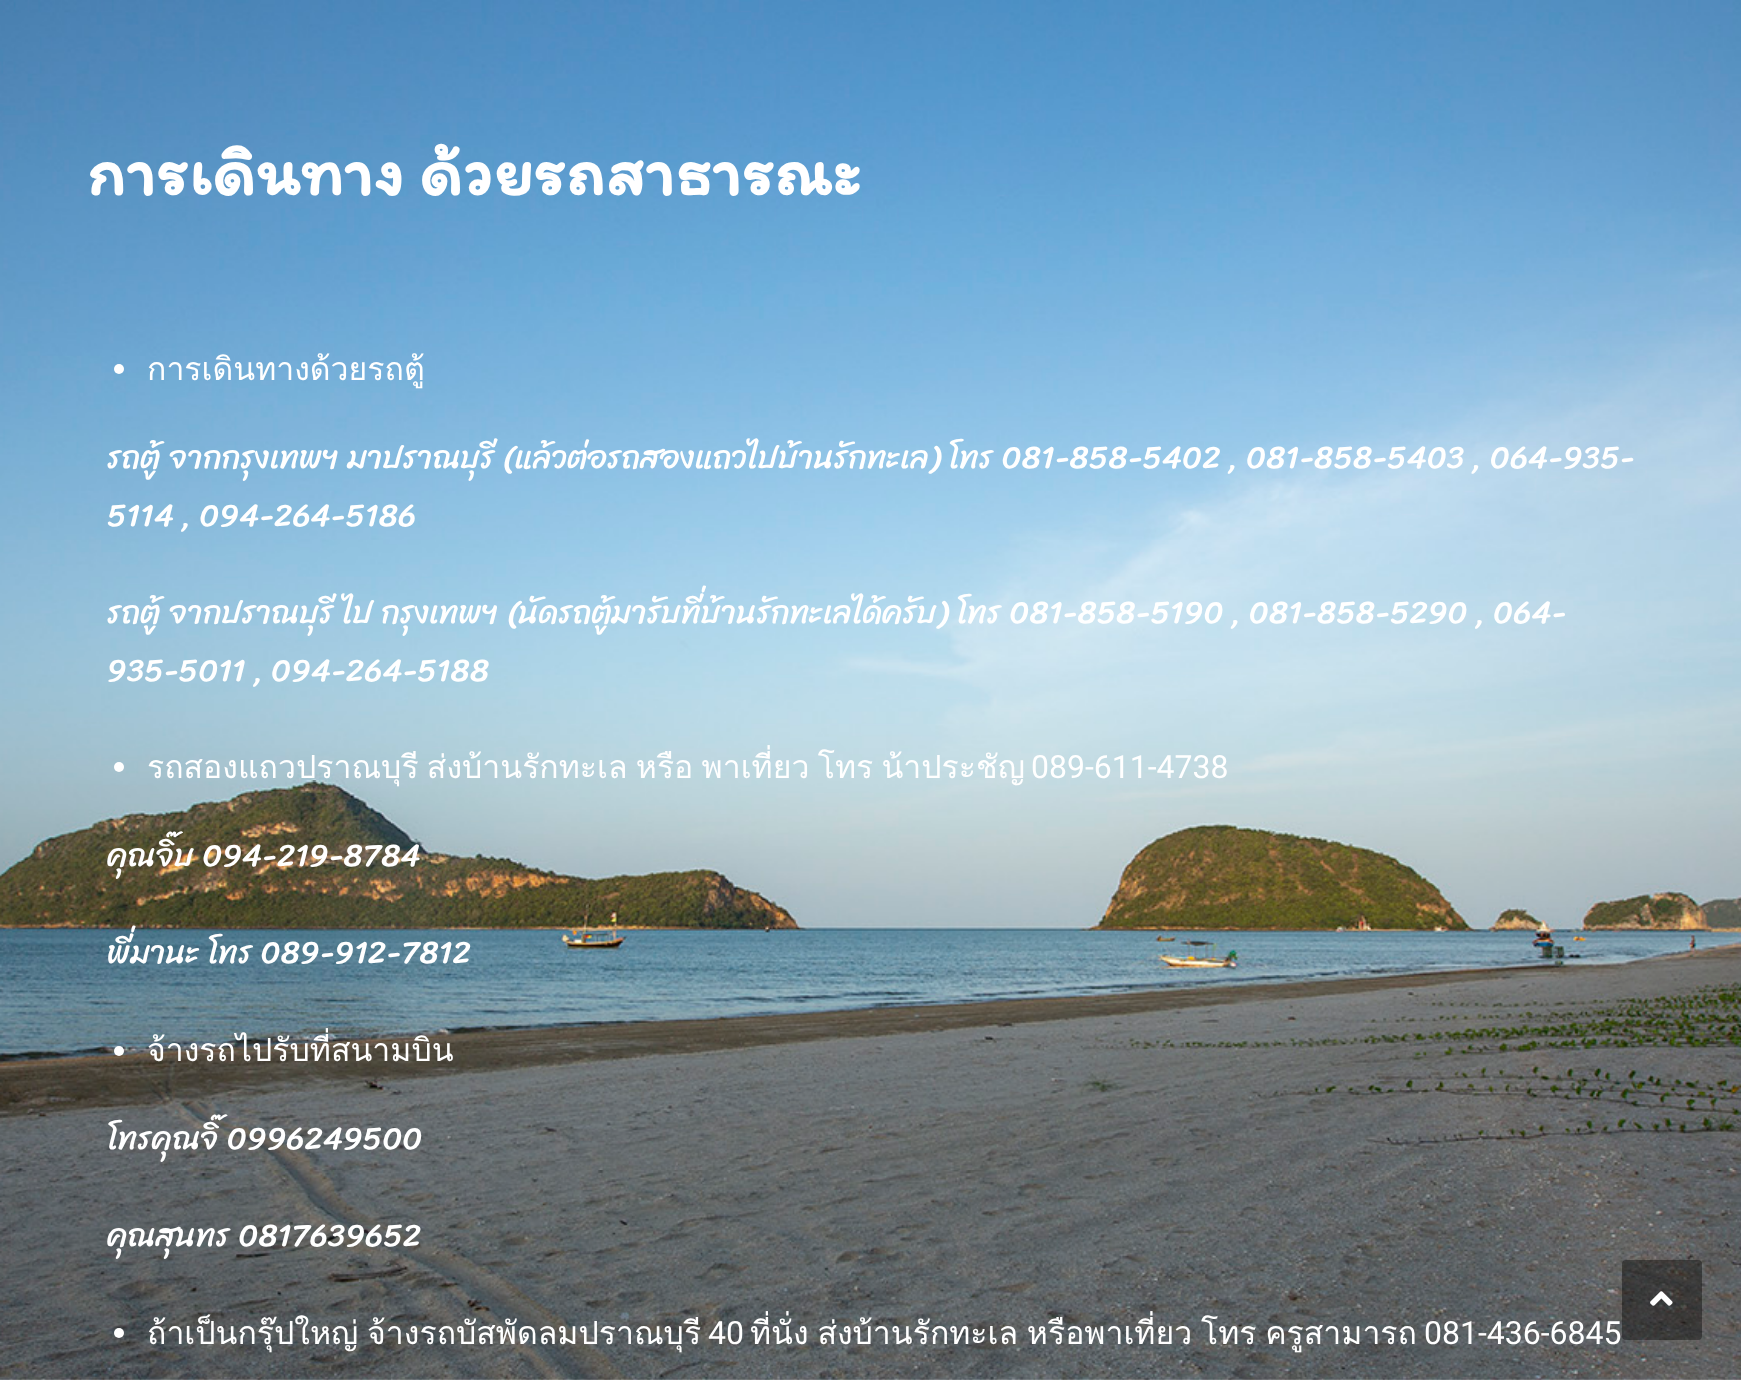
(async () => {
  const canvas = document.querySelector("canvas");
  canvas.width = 1741;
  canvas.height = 1380;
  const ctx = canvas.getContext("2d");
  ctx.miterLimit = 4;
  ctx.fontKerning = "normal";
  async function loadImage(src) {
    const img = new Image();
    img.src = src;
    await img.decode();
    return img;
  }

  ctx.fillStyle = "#ffffff";
  ctx.fillRect(0, 0, 1741, 1380);
  ctx.drawImage(await loadImage("img/1.png"), 0, 0, 1741, 1380);
  ctx.beginPath();
  ctx.arc(119, 369, 5, 0, Math.PI * 2);
  ctx.fill();
  ctx.beginPath();
  ctx.arc(119, 767, 5, 0, Math.PI * 2);
  ctx.fill();
  ctx.beginPath();
  ctx.arc(119, 1051, 5, 0, Math.PI * 2);
  ctx.fill();
  ctx.beginPath();
  ctx.arc(119, 1333, 5, 0, Math.PI * 2);
  ctx.fill();
  ctx.fillStyle = "rgba(0, 0, 0, 0.4)";
  ctx.beginPath();
  ctx.roundRect(1622, 1260, 80, 80, 4);
  ctx.fill();
  ctx.drawImage(await loadImage("img/2.png"), 1650, 1291, 23, 15);
  ctx.letterSpacing = "1.2px";
  ctx.wordSpacing = "-2.5px";
  ctx.font = "bold 68px Itim";
  ctx.fillStyle = "#ffffff";
  ctx.fillText("การเดินทาง ด้วยรถสาธารณะ", 87, 195);
  ctx.letterSpacing = "0px";
  ctx.wordSpacing = "0px";
  ctx.font = "32px Loma";
  ctx.fillText("การเดินทางด้วยรถตู้", 147, 380);
  ctx.font = "32px Sriracha";
  for (const [text, x, y] of [
    ["รถตู้ จากกรุงเทพฯ มาปราณบุรี (แล้วต่อรถสองแถวไปบ้านรักทะเล) โทร 081-858-5402 , 081-858-5403 , 064-935-", 107, 468],
    ["5114 , 094-264-5186", 107, 526],
    ["รถตู้ จากปราณบุรี ไป กรุงเทพฯ (นัดรถตู้มารับที่บ้านรักทะเลได้ครับ) โทร 081-858-5190 , 081-858-5290 , 064-", 107, 623],
    ["935-5011 , 094-264-5188", 107, 681],
  ]) {
    ctx.fillText(text, x, y);
  }
  ctx.wordSpacing = "-2.5px";
  ctx.font = "32px Loma";
  ctx.fillText("รถสองแถวปราณบุรี ส่งบ้านรักทะเล หรือ พาเที่ยว โทร น้าประชัญ", 147, 778);
  ctx.wordSpacing = "0px";
  ctx.font = "32px Roboto";
  ctx.fillText("089-611-4738", 1031, 778);
  ctx.font = "32px Sriracha";
  ctx.fillText("คุณจิ๊บ 094-219-8784", 107, 866);
  ctx.fillText("พี่มานะ โทร 089-912-7812", 107, 963);
  ctx.font = "32px Loma";
  ctx.fillText("จ้างรถไปรับที่สนามบิน", 147, 1061);
  ctx.font = "32px Sriracha";
  ctx.fillText("โทรคุณจิ๊ 0996249500", 107, 1149);
  ctx.fillText("คุณสุนทร 0817639652", 107, 1246);
  ctx.wordSpacing = "-2px";
  ctx.font = "32px Loma";
  ctx.fillText("ถ้าเป็นกรุ๊ปใหญ่ จ้างรถบัสพัดลมปราณบุรี", 147, 1344);
  ctx.wordSpacing = "0px";
  ctx.font = "32px Roboto";
  ctx.fillText("40", 708, 1344);
  ctx.wordSpacing = "-2px";
  ctx.font = "32px Loma";
  ctx.fillText("ที่นั่ง ส่งบ้านรักทะเล หรือพาเที่ยว โทร ครูสามารถ", 750, 1344);
  ctx.wordSpacing = "0px";
  ctx.font = "32px Roboto";
  ctx.fillText("081-436-6845", 1424, 1344);
})();
